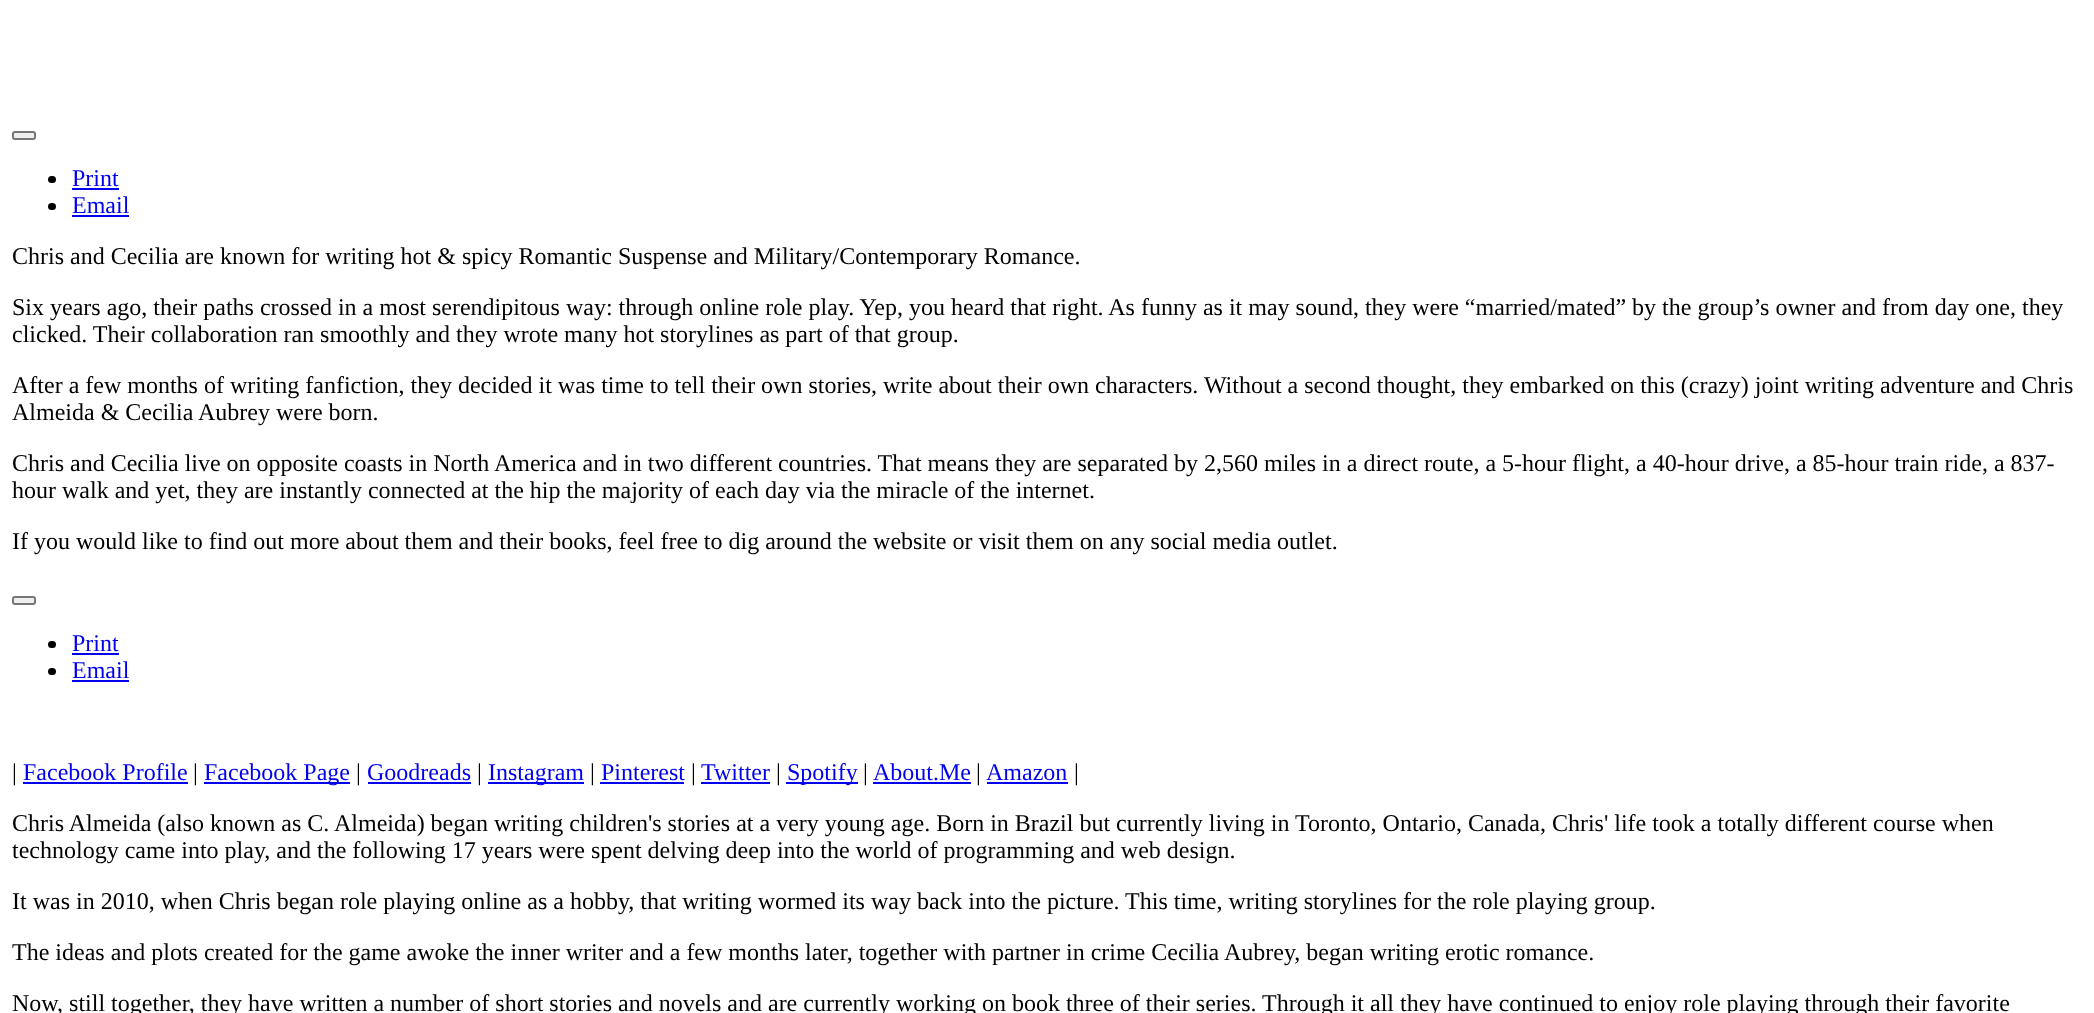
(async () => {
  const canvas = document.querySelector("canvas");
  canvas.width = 2094;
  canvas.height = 1013;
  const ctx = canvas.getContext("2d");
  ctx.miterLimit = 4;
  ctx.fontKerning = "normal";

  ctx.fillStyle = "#ffffff";
  ctx.fillRect(0, 0, 2094, 1013);
  ctx.fillStyle = "#efefef";
  ctx.beginPath();
  ctx.roundRect(13, 132, 22, 7, 2);
  ctx.fill();
  ctx.strokeStyle = "#767676";
  ctx.lineWidth = 2;
  ctx.stroke();
  ctx.fillStyle = "#000000";
  ctx.beginPath();
  ctx.roundRect(48, 176, 8, 7, 3.5);
  ctx.fill();
  ctx.fillStyle = "#0000ee";
  ctx.fillRect(72, 188, 47, 2);
  ctx.fillStyle = "#000000";
  ctx.beginPath();
  ctx.roundRect(48, 203, 8, 7, 3.5);
  ctx.fill();
  ctx.fillStyle = "#0000ee";
  ctx.fillRect(72, 215, 57, 2);
  ctx.fillStyle = "#efefef";
  ctx.beginPath();
  ctx.roundRect(13, 597, 22, 7, 2);
  ctx.fill();
  ctx.stroke();
  ctx.fillStyle = "#000000";
  ctx.beginPath();
  ctx.roundRect(48, 641, 8, 7, 3.5);
  ctx.fill();
  ctx.fillStyle = "#0000ee";
  ctx.fillRect(72, 653, 47, 2);
  ctx.fillStyle = "#000000";
  ctx.beginPath();
  ctx.roundRect(48, 668, 8, 7, 3.5);
  ctx.fill();
  for (const [x, y, w, h, color] of [
    [72, 680, 57, 2, "#0000ee"],
    [23, 782, 165, 2, "#0000ee"],
    [204, 782, 146, 2, "#0000ee"],
    [368, 782, 103, 2, "#0000ee"],
    [488, 782, 96, 2, "#0000ee"],
    [600, 782, 84, 2, "#0000ee"],
    [701, 782, 69, 2, "#0000ee"],
    [786, 782, 72, 2, "#0000ee"],
    [873, 782, 98, 2, "#0000ee"],
    [987, 782, 81, 2, "#0000ee"],
  ]) {
    ctx.fillStyle = color;
    ctx.fillRect(x, y, w, h);
  }
  ctx.font = "24px Liberation Serif";
  ctx.fillText("Print", 72, 186);
  ctx.fillText("Email", 72, 213);
  ctx.fillStyle = "#000000";
  for (const [text, x, y] of [
    ["Chris and Cecilia are known for writing hot & spicy Romantic Suspense and Military/Contemporary Romance.", 12, 264],
    ["Six years ago, their paths crossed in a most serendipitous way: through online role play. Yep, you heard that right. As funny as it may sound, they were “married/mated” by the group’s owner and from day one, they", 12, 315],
    ["clicked. Their collaboration ran smoothly and they wrote many hot storylines as part of that group.", 12, 342],
    ["After a few months of writing fanfiction, they decided it was time to tell their own stories, write about their own characters. Without a second thought, they embarked on this (crazy) joint writing adventure and Chris", 12, 393],
    ["Almeida & Cecilia Aubrey were born.", 12, 420],
    ["Chris and Cecilia live on opposite coasts in North America and in two different countries. That means they are separated by 2,560 miles in a direct route, a 5-hour flight, a 40-hour drive, a 85-hour train ride, a 837-", 12, 471],
    ["hour walk and yet, they are instantly connected at the hip the majority of each day via the miracle of the internet.", 12, 498],
    ["If you would like to find out more about them and their books, feel free to dig around the website or visit them on any social media outlet.", 12, 549],
  ]) {
    ctx.fillText(text, x, y);
  }
  ctx.fillStyle = "#0000ee";
  ctx.fillText("Print", 72, 651);
  ctx.fillText("Email", 72, 678);
  ctx.fillStyle = "#000000";
  ctx.fillText("|", 12, 780);
  ctx.fillStyle = "#0000ee";
  ctx.fillText("Facebook Profile", 23, 780);
  ctx.fillStyle = "#000000";
  ctx.fillText("|", 193, 780);
  ctx.fillStyle = "#0000ee";
  ctx.fillText("Facebook Page", 204, 780);
  ctx.fillStyle = "#000000";
  ctx.fillText("|", 356, 780);
  ctx.fillStyle = "#0000ee";
  ctx.fillText("Goodreads", 367, 780);
  ctx.fillStyle = "#000000";
  ctx.fillText("|", 477, 780);
  ctx.fillStyle = "#0000ee";
  ctx.fillText("Instagram", 488, 780);
  ctx.fillStyle = "#000000";
  ctx.fillText("|", 590, 780);
  ctx.fillStyle = "#0000ee";
  ctx.fillText("Pinterest", 601, 780);
  ctx.fillStyle = "#000000";
  ctx.fillText("|", 691, 780);
  ctx.fillStyle = "#0000ee";
  ctx.fillText("Twitter", 701, 780);
  ctx.fillStyle = "#000000";
  ctx.fillText("|", 776, 780);
  ctx.fillStyle = "#0000ee";
  ctx.fillText("Spotify", 787, 780);
  ctx.fillStyle = "#000000";
  ctx.fillText("|", 863, 780);
  ctx.fillStyle = "#0000ee";
  ctx.fillText("About.Me", 873, 780);
  ctx.fillStyle = "#000000";
  ctx.fillText("|", 976, 780);
  ctx.fillStyle = "#0000ee";
  ctx.fillText("Amazon", 986, 780);
  ctx.fillStyle = "#000000";
  for (const [text, x, y] of [
    ["|", 1074, 780],
    ["Chris Almeida (also known as C. Almeida) began writing children's stories at a very young age. Born in Brazil but currently living in Toronto, Ontario, Canada, Chris' life took a totally different course when", 12, 831],
    ["technology came into play, and the following 17 years were spent delving deep into the world of programming and web design.", 12, 858],
    ["It was in 2010, when Chris began role playing online as a hobby, that writing wormed its way back into the picture. This time, writing storylines for the role playing group.", 12, 909],
    ["The ideas and plots created for the game awoke the inner writer and a few months later, together with partner in crime Cecilia Aubrey, began writing erotic romance.", 12, 960],
    ["Now, still together, they have written a number of short stories and novels and are currently working on book three of their series. Through it all they have continued to enjoy role playing through their favorite", 12, 1011],
  ]) {
    ctx.fillText(text, x, y);
  }
})();
